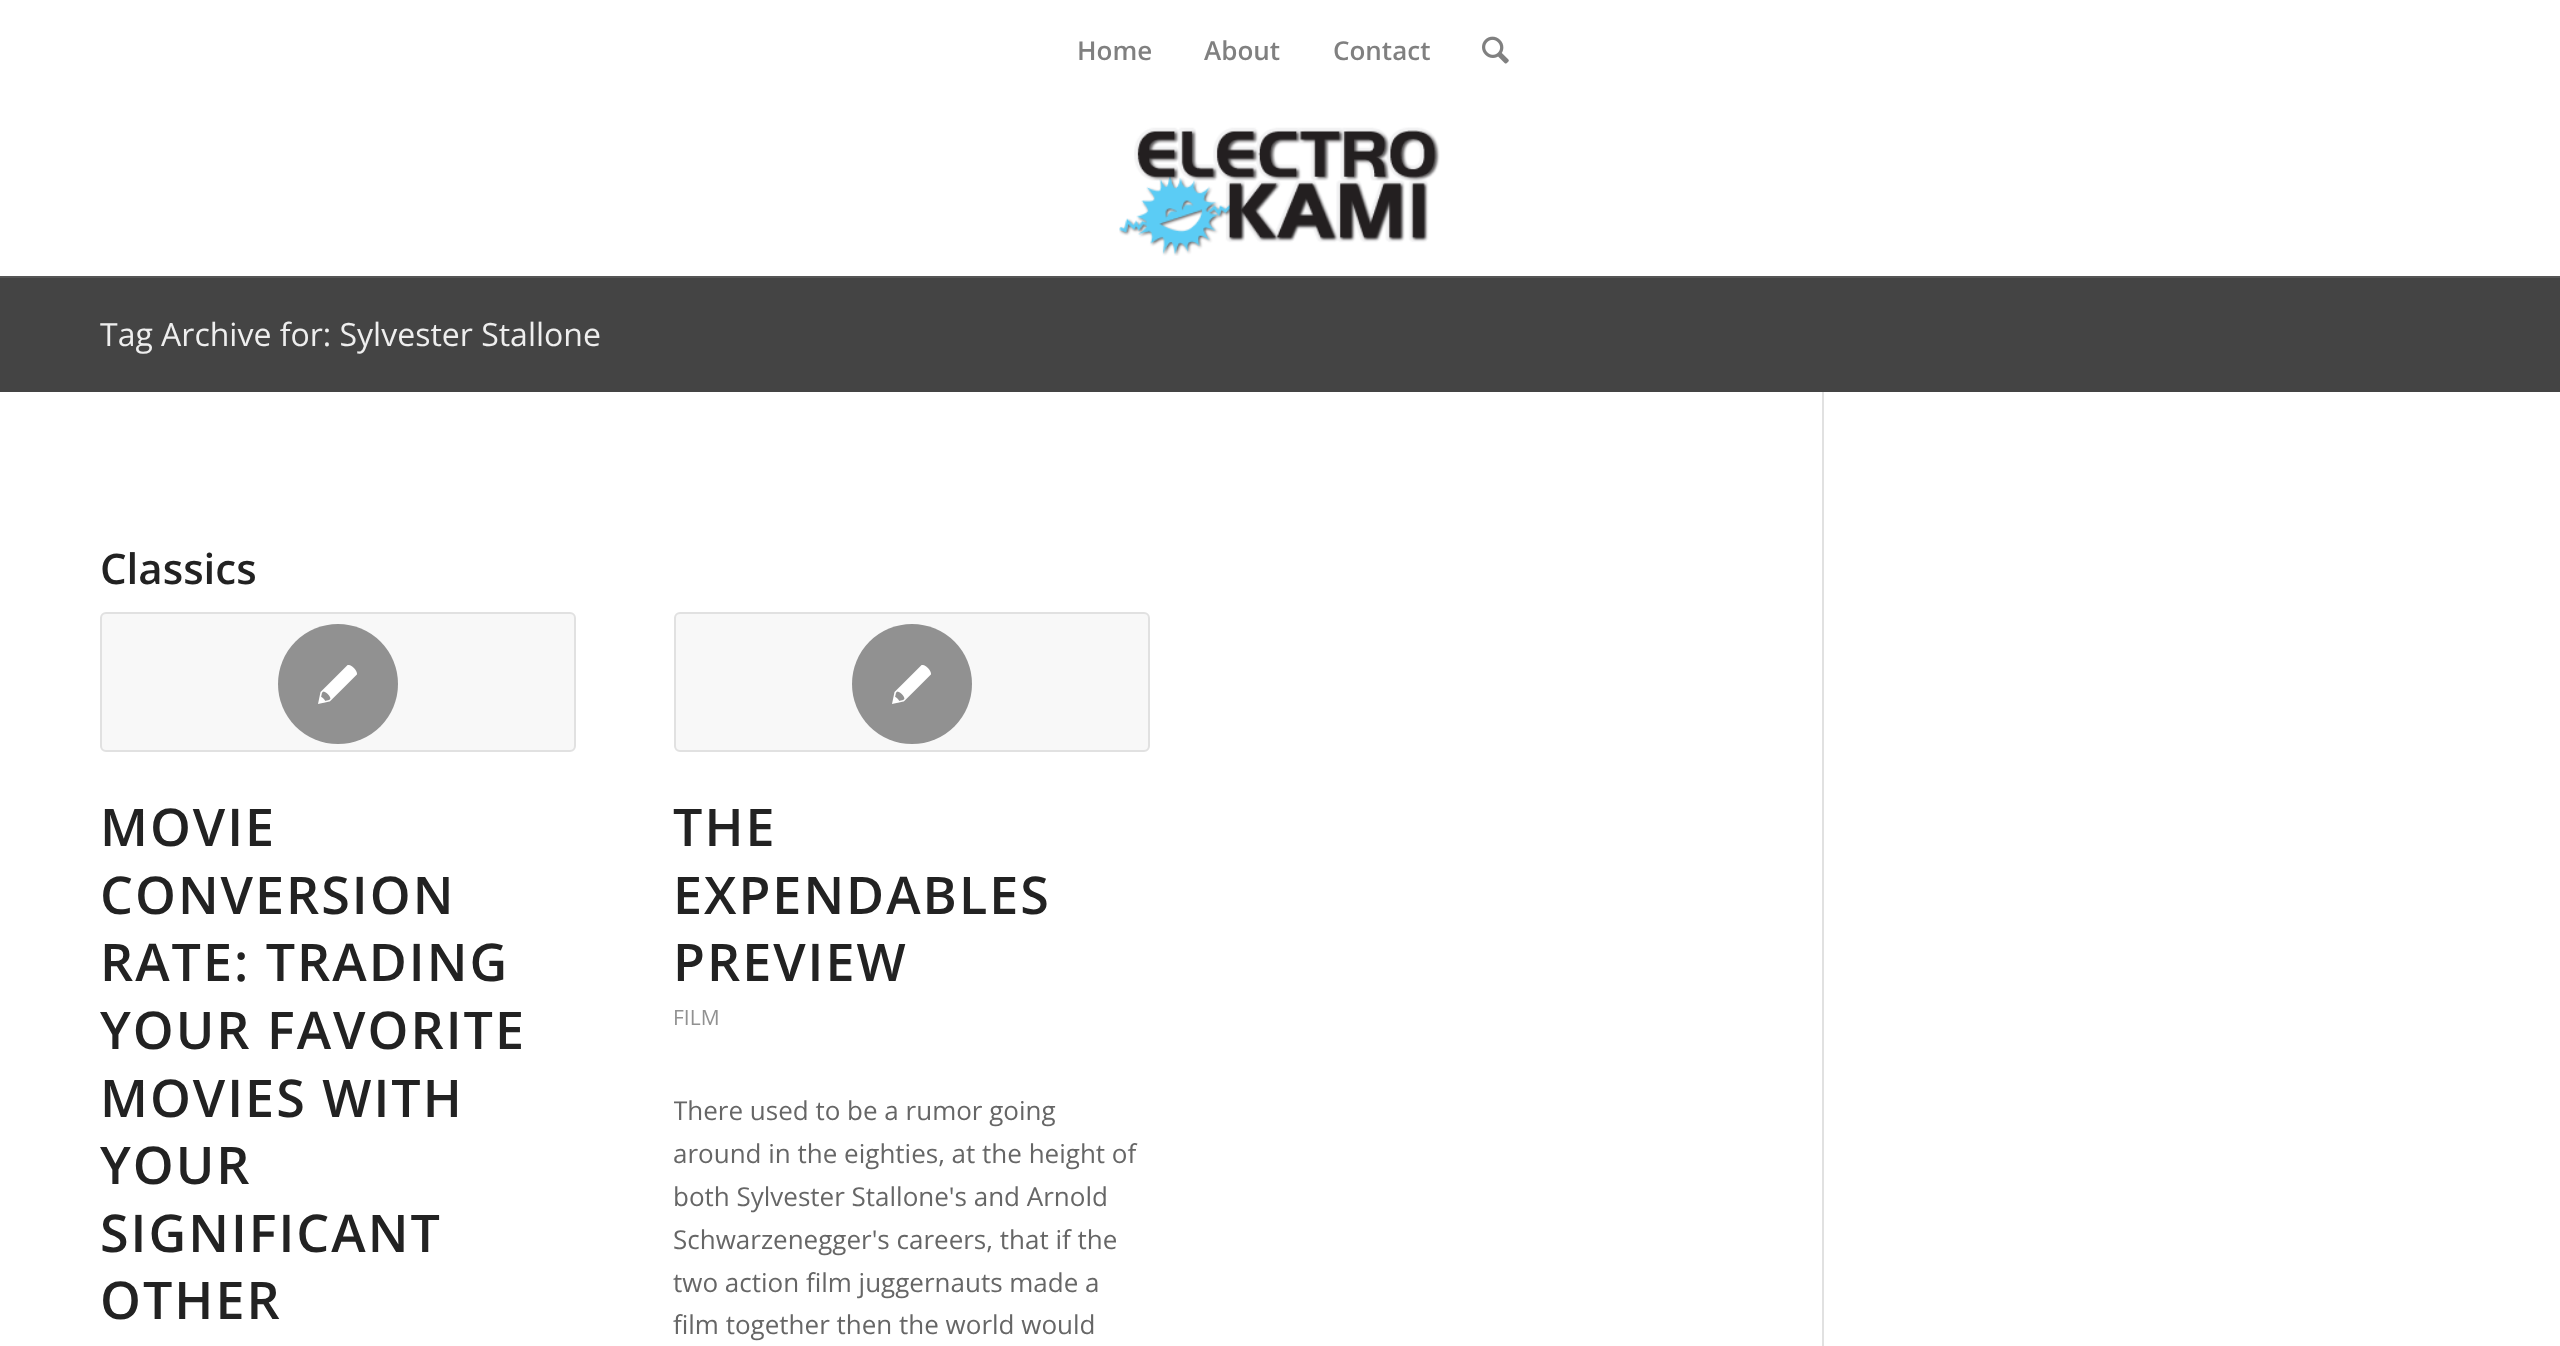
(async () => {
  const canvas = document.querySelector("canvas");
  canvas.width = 2560;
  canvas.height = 1346;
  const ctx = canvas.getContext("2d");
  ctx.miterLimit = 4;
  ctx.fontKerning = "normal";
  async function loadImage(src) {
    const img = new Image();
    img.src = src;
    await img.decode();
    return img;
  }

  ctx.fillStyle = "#ffffff";
  ctx.fillRect(0, 0, 2560, 1346);
  ctx.drawImage(await loadImage("img/1.png"), 1482, 36, 27, 28);
  ctx.drawImage(await loadImage("img/2.png"), 1119, 127, 321, 129);
  for (const [x, y, w, h, color] of [
    [0, 278, 2560, 114, "#444444"],
    [0, 276, 2560, 2, "#555555"],
    [1822, 392, 2, 954, "#e1e1e1"],
  ]) {
    ctx.fillStyle = color;
    ctx.fillRect(x, y, w, h);
  }
  ctx.fillStyle = "#f8f8f8";
  ctx.beginPath();
  ctx.roundRect(101, 613, 474, 138, 5);
  ctx.fill();
  ctx.strokeStyle = "#e1e1e1";
  ctx.lineWidth = 2;
  ctx.stroke();
  ctx.fillStyle = "#919191";
  ctx.beginPath();
  ctx.arc(338, 684, 60, 0, Math.PI * 2);
  ctx.fill();
  ctx.drawImage(await loadImage("img/3.png"), 318, 665, 39, 39);
  ctx.fillStyle = "#f8f8f8";
  ctx.beginPath();
  ctx.roundRect(675, 613, 474, 138, 5);
  ctx.fill();
  ctx.stroke();
  ctx.fillStyle = "#919191";
  ctx.beginPath();
  ctx.arc(912, 684, 60, 0, Math.PI * 2);
  ctx.fill();
  ctx.drawImage(await loadImage("img/3.png"), 892, 665, 39, 39);
  ctx.font = "600 26px Open Sans";
  ctx.fillStyle = "#808080";
  for (const [text, x, y] of [
    ["Home", 1077, 60],
    ["About", 1204, 60],
    ["Contact", 1333, 60],
  ]) {
    ctx.fillText(text, x, y);
  }
  ctx.font = "32px Open Sans";
  ctx.fillStyle = "#eeeeee";
  ctx.fillText("Tag Archive for: Sylvester Stallone", 100, 346);
  ctx.font = "600 42px Open Sans";
  ctx.fillStyle = "#222222";
  ctx.fillText("Classics", 100, 584);
  ctx.letterSpacing = "2px";
  ctx.font = "600 52px Open Sans";
  for (const [text, x, y] of [
    ["MOVIE", 100, 846],
    ["CONVERSION", 100, 914],
    ["RATE: TRADING", 100, 981],
    ["YOUR FAVORITE", 100, 1049],
    ["MOVIES WITH", 100, 1117],
    ["YOUR", 100, 1184],
    ["SIGNIFICANT", 100, 1252],
    ["OTHER", 100, 1319],
    ["THE", 673, 846],
    ["EXPENDABLES", 673, 914],
    ["PREVIEW", 673, 981],
  ]) {
    ctx.fillText(text, x, y);
  }
  ctx.letterSpacing = "0px";
  ctx.font = "21px Open Sans";
  ctx.fillStyle = "#919191";
  ctx.fillText("FILM", 673, 1025);
  ctx.save();
  ctx.beginPath();
  ctx.rect(674, 1090, 476, 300);
  ctx.clip();
  ctx.font = "26px Open Sans";
  ctx.fillStyle = "#666666";
  ctx.fillText("There used to be a rumor going", 673, 1120);
  ctx.restore();
  ctx.font = "26px Open Sans";
  ctx.fillStyle = "#666666";
  for (const [text, x, y] of [
    ["around in the eighties, at the height of", 673, 1163],
    ["both Sylvester Stallone's and Arnold", 673, 1206],
    ["Schwarzenegger's careers, that if the", 673, 1249],
    ["two action film juggernauts made a", 673, 1292],
    ["film together then the world would", 673, 1334],
  ]) {
    ctx.fillText(text, x, y);
  }
})();
